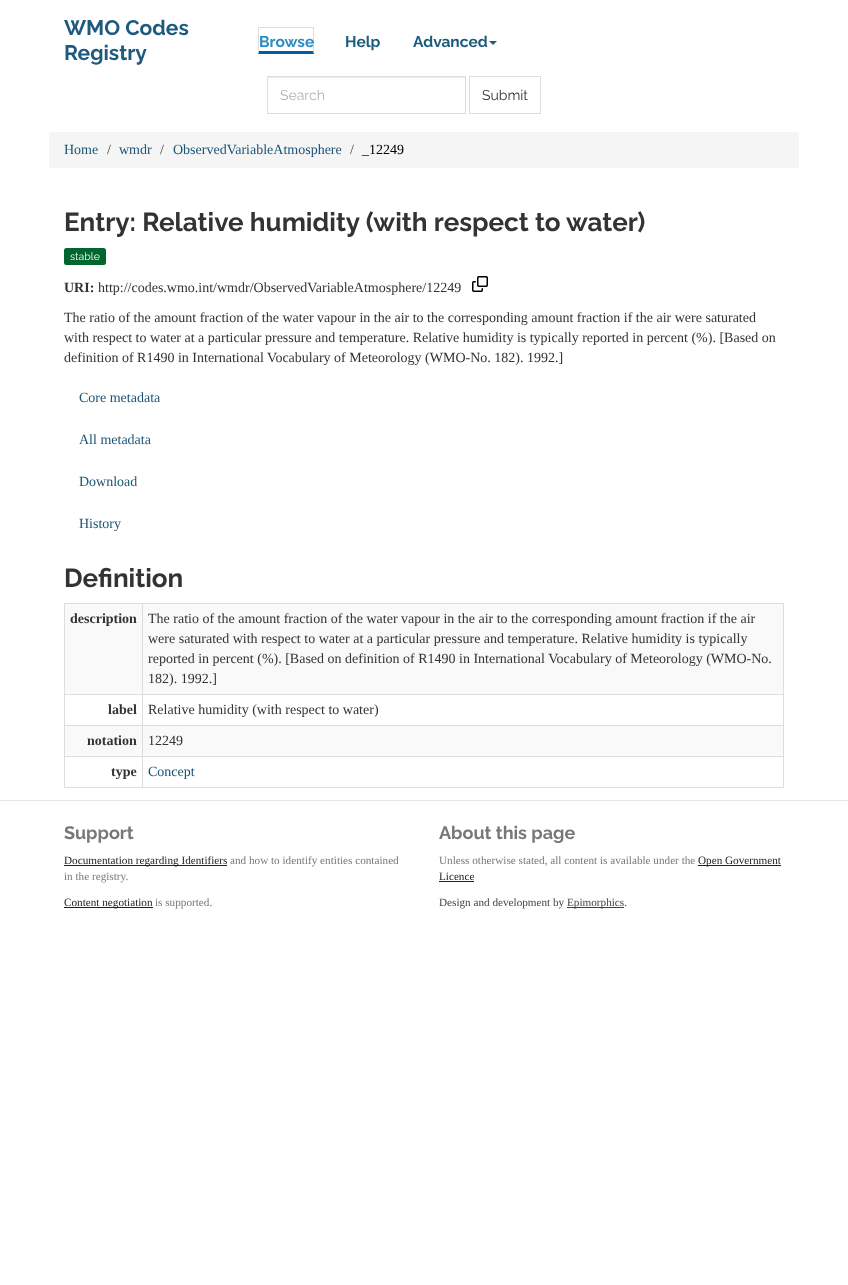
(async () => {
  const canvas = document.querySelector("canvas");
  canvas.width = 848;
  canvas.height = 1285;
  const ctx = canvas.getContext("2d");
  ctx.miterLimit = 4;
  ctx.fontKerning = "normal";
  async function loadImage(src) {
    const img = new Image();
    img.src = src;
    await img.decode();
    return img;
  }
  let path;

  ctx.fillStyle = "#ffffff";
  ctx.fillRect(0, 0, 848, 1285);
  ctx.fillStyle = "#dddddd";
  ctx.fillRect(258, 27, 56, 1);
  path = new Path2D("M314 27V54L313 51V28Z");
  ctx.fill(path);
  ctx.fillStyle = "#005ea5";
  path = new Path2D("M314 54H258L259 51H313Z");
  ctx.fill(path);
  ctx.fillStyle = "#dddddd";
  path = new Path2D("M258 54V27L259 28V51Z");
  ctx.fill(path);
  ctx.fillStyle = "#1c5b7d";
  path = new Path2D("M489 41H497L493 45Z");
  ctx.fill(path);
  ctx.fillStyle = "#ececec";
  ctx.fillRect(268, 77, 197, 1);
  ctx.strokeStyle = "#dddddd";
  ctx.strokeRect(267.5, 76.5, 198, 37);
  ctx.strokeRect(469.5, 76.5, 71, 37);
  ctx.fillStyle = "#f5f5f5";
  ctx.fillRect(49, 132, 750, 36);
  ctx.fillStyle = "#00662e";
  ctx.beginPath();
  ctx.roundRect(64, 248, 42, 17, 2.5);
  ctx.fill();
  ctx.drawImage(await loadImage("img/1.png"), 472, 276, 16, 16);
  for (const [x, y, w, h, color] of [
    [64, 603, 720, 1, "#dddddd"],
    [783, 603, 1, 185, "#dddddd"],
    [64, 787, 720, 1, "#dddddd"],
    [64, 603, 1, 185, "#dddddd"],
    [65, 604, 718, 90, "#f9f9f9"],
    [142, 694, 642, 1, "#dddddd"],
    [142, 725, 642, 1, "#dddddd"],
    [65, 726, 718, 30, "#f9f9f9"],
    [142, 756, 642, 1, "#dddddd"],
    [142, 756, 1, 32, "#dddddd"],
    [64, 756, 79, 1, "#dddddd"],
    [142, 725, 1, 32, "#dddddd"],
    [64, 725, 79, 1, "#dddddd"],
    [142, 694, 1, 32, "#dddddd"],
    [64, 694, 79, 1, "#dddddd"],
    [142, 603, 1, 92, "#dddddd"],
    [0, 800, 848, 1, "#e5e5e5"],
    [64, 865, 163, 1, "#202222"],
    [64, 907, 89, 1, "#202222"],
    [698, 865, 83, 1, "#202222"],
    [439, 881, 35, 1, "#202222"],
    [567, 907, 57, 1, "#404040"],
  ]) {
    ctx.fillStyle = color;
    ctx.fillRect(x, y, w, h);
  }
  ctx.font = "bold 21px Raleway";
  ctx.fillStyle = "#1c5b7d";
  ctx.fillText("WMO Codes", 64, 35);
  ctx.fillText("Registry", 64, 60);
  ctx.font = "bold 15.5px Raleway";
  ctx.fillStyle = "#2b8cc4";
  ctx.fillText("Browse", 259, 47);
  ctx.fillStyle = "#1c5b7d";
  ctx.fillText("Help", 345, 47);
  ctx.fillText("Advanced", 413, 47);
  ctx.font = "14px Raleway";
  ctx.fillStyle = "#b3b3b3";
  ctx.fillText("Search", 280, 100);
  ctx.fillStyle = "#333333";
  ctx.fillText("Submit", 482, 100);
  ctx.font = "14px Liberation Serif";
  ctx.fillStyle = "#195476";
  ctx.fillText("Home", 64, 154);
  ctx.fillStyle = "#424242";
  ctx.fillText("/", 107, 154);
  ctx.fillStyle = "#195476";
  ctx.fillText("wmdr", 119, 154);
  ctx.fillStyle = "#424242";
  ctx.fillText("/", 160, 154);
  ctx.fillStyle = "#195476";
  ctx.fillText("ObservedVariableAtmosphere", 173, 154);
  ctx.fillStyle = "#424242";
  ctx.fillText("/", 350, 154);
  ctx.fillStyle = "#000000";
  ctx.fillText("_12249", 362, 154);
  ctx.font = "bold 26px Raleway";
  ctx.fillStyle = "#333333";
  ctx.fillText("Entry: Relative humidity (with respect to water)", 64, 231);
  ctx.font = "10.5px Raleway";
  ctx.fillStyle = "#ffffff";
  ctx.fillText("stable", 70, 260);
  ctx.font = "bold 14px Liberation Serif";
  ctx.fillStyle = "#333333";
  ctx.fillText("URI:", 64, 292);
  ctx.font = "14px Liberation Serif";
  for (const [text, x, y] of [
    ["http://codes.wmo.int/wmdr/ObservedVariableAtmosphere/12249", 98, 292],
    ["The ratio of the amount fraction of the water vapour in the air to the corresponding amount fraction if the air were saturated", 64, 322],
    ["with respect to water at a particular pressure and temperature. Relative humidity is typically reported in percent (%). [Based on", 64, 342],
    ["definition of R1490 in International Vocabulary of Meteorology (WMO-No. 182). 1992.]", 64, 362],
  ]) {
    ctx.fillText(text, x, y);
  }
  ctx.fillStyle = "#195476";
  for (const [text, x, y] of [
    ["Core metadata", 79, 402],
    ["All metadata", 79, 444],
    ["Download", 79, 486],
    ["History", 79, 528],
  ]) {
    ctx.fillText(text, x, y);
  }
  ctx.font = "bold 26px Raleway";
  ctx.fillStyle = "#333333";
  ctx.fillText("Definition", 64, 587);
  ctx.font = "bold 14px Liberation Serif";
  ctx.fillText("description", 70, 623);
  ctx.font = "14px Liberation Serif";
  for (const [text, x, y] of [
    ["The ratio of the amount fraction of the water vapour in the air to the corresponding amount fraction if the air", 148, 623],
    ["were saturated with respect to water at a particular pressure and temperature. Relative humidity is typically", 148, 643],
    ["reported in percent (%). [Based on definition of R1490 in International Vocabulary of Meteorology (WMO-No.", 148, 663],
    ["182). 1992.]", 148, 683],
  ]) {
    ctx.fillText(text, x, y);
  }
  ctx.font = "bold 14px Liberation Serif";
  ctx.fillText("label", 108, 714);
  ctx.font = "14px Liberation Serif";
  ctx.fillText("Relative humidity (with respect to water)", 148, 714);
  ctx.font = "bold 14px Liberation Serif";
  ctx.fillText("notation", 87, 745);
  ctx.font = "14px Liberation Serif";
  ctx.fillText("12249", 148, 745);
  ctx.font = "bold 14px Liberation Serif";
  ctx.fillText("type", 111, 776);
  ctx.font = "14px Liberation Serif";
  ctx.fillStyle = "#195476";
  ctx.fillText("Concept", 148, 776);
  ctx.font = "bold 18px Raleway";
  ctx.fillStyle = "#777777";
  ctx.fillText("Support", 64, 839);
  ctx.font = "11.2px Liberation Serif";
  ctx.fillStyle = "#202222";
  ctx.fillText("Documentation regarding Identifiers", 64, 864);
  ctx.fillStyle = "#777777";
  ctx.fillText("and how to identify entities contained", 230, 864);
  ctx.fillText("in the registry.", 64, 880);
  ctx.fillStyle = "#202222";
  ctx.fillText("Content negotiation", 64, 906);
  ctx.fillStyle = "#777777";
  ctx.fillText("is supported.", 155, 906);
  ctx.font = "bold 18px Raleway";
  ctx.fillText("About this page", 439, 839);
  ctx.font = "11.2px Liberation Serif";
  ctx.fillText("Unless otherwise stated, all content is available under the", 439, 864);
  ctx.fillStyle = "#202222";
  ctx.fillText("Open Government", 698, 864);
  ctx.fillText("Licence", 439, 880);
  ctx.fillStyle = "#424242";
  ctx.fillText("Design and development by", 439, 906);
  ctx.fillText("Epimorphics.", 567, 906);
})();
